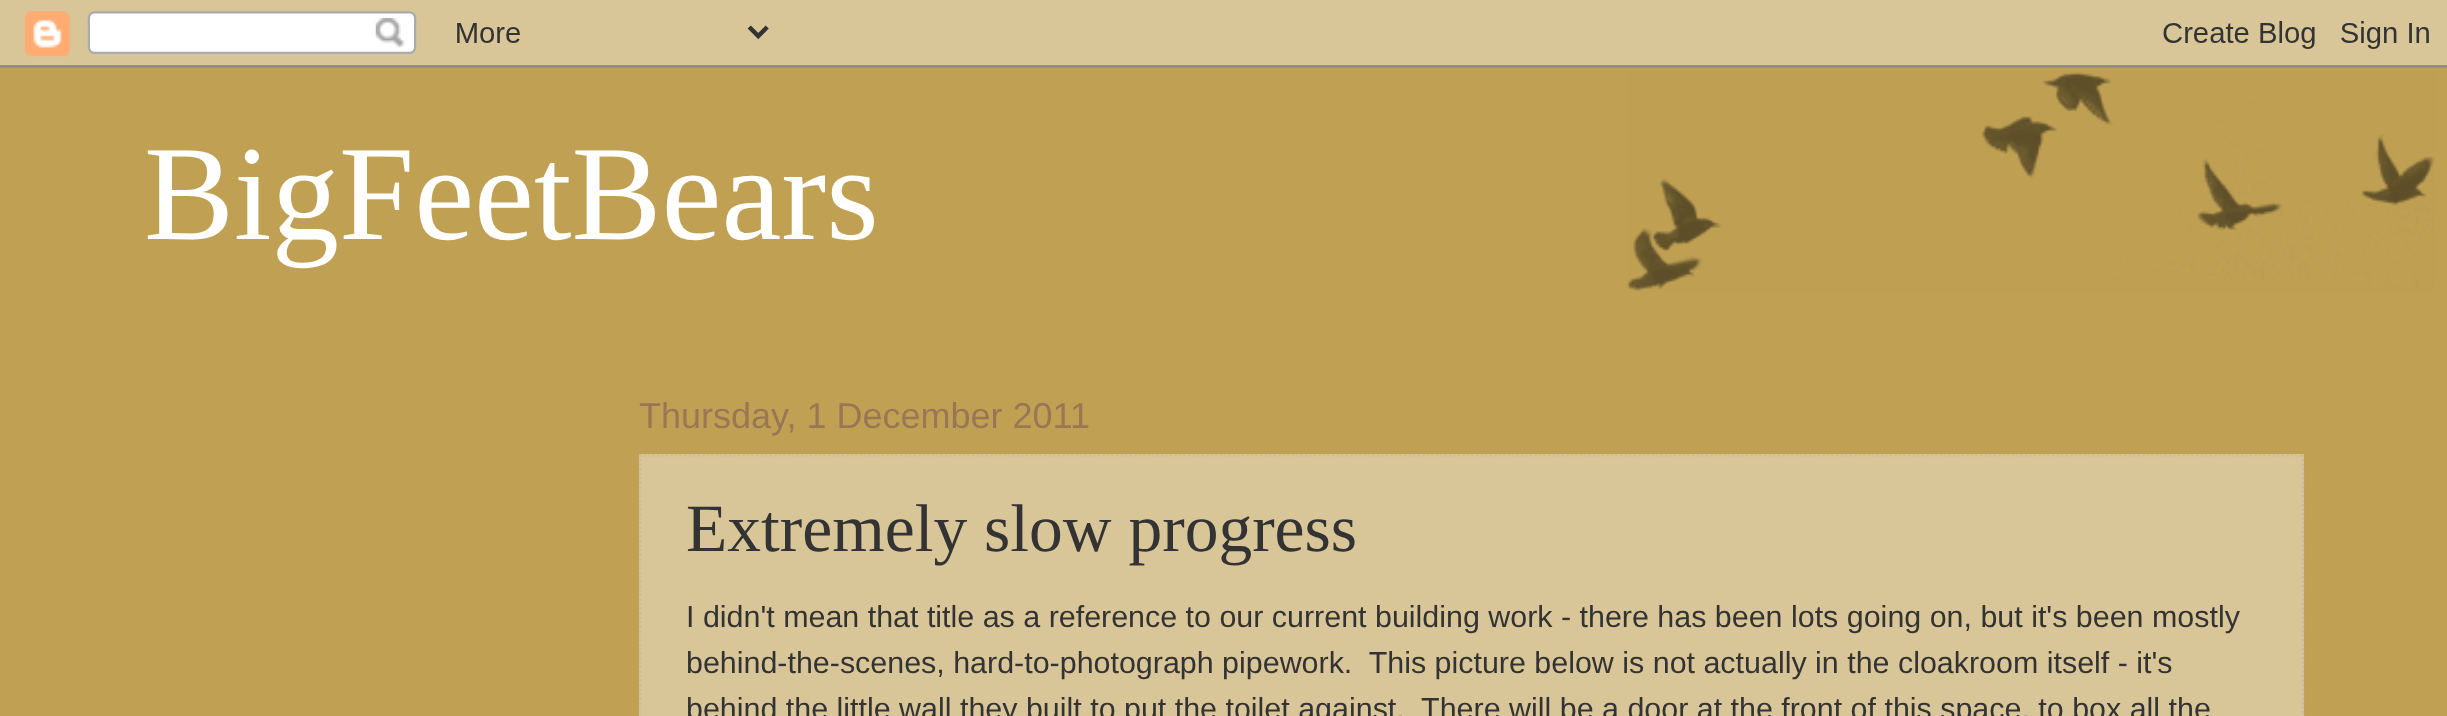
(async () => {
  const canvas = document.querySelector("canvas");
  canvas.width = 2447;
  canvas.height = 716;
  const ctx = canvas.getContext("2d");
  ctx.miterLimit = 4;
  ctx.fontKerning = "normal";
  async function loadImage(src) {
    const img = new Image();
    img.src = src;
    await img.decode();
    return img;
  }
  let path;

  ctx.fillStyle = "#c0a154";
  ctx.fillRect(0, 0, 2447, 716);
  ctx.drawImage(await loadImage("img/1.png"), 0, 0, 2447, 68);
  ctx.drawImage(await loadImage("img/2.png"), 1626, 72, 809, 219);
  ctx.fillStyle = "#d9c698";
  ctx.fillRect(639, 454, 1665, 262);
  path = new Path2D("M639 455.5H2304");
  ctx.strokeStyle = "#ccbb99";
  ctx.lineWidth = 2.2;
  ctx.setLineDash([2.25, 2.25]);
  ctx.stroke(path);
  path = new Path2D("M2303 454.5V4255");
  ctx.stroke(path);
  path = new Path2D("M640 454.5V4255");
  ctx.stroke(path);
  ctx.font = "135px Liberation Serif";
  ctx.fillStyle = "#ffffff";
  ctx.fillText("BigFeetBears", 144, 239);
  ctx.font = "36px Liberation Sans";
  ctx.fillStyle = "#997755";
  ctx.fillText("Thursday, 1 December 2011", 639, 428);
  ctx.font = "67.5px Liberation Serif";
  ctx.fillStyle = "#333333";
  ctx.fillText("Extremely slow progress", 686, 551);
  ctx.font = "30.43px Liberation Sans";
  for (const [text, x, y] of [
    ["I didn't mean that title as a reference to our current building work - there has been lots going on, but it's been mostly", 686, 627],
    ["behind-the-scenes, hard-to-photograph pipework.  This picture below is not actually in the cloakroom itself - it's", 686, 673],
    ["behind the little wall they built to put the toilet against.  There will be a door at the front of this space, to box all the", 686, 719],
  ]) {
    ctx.fillText(text, x, y);
  }
})();
